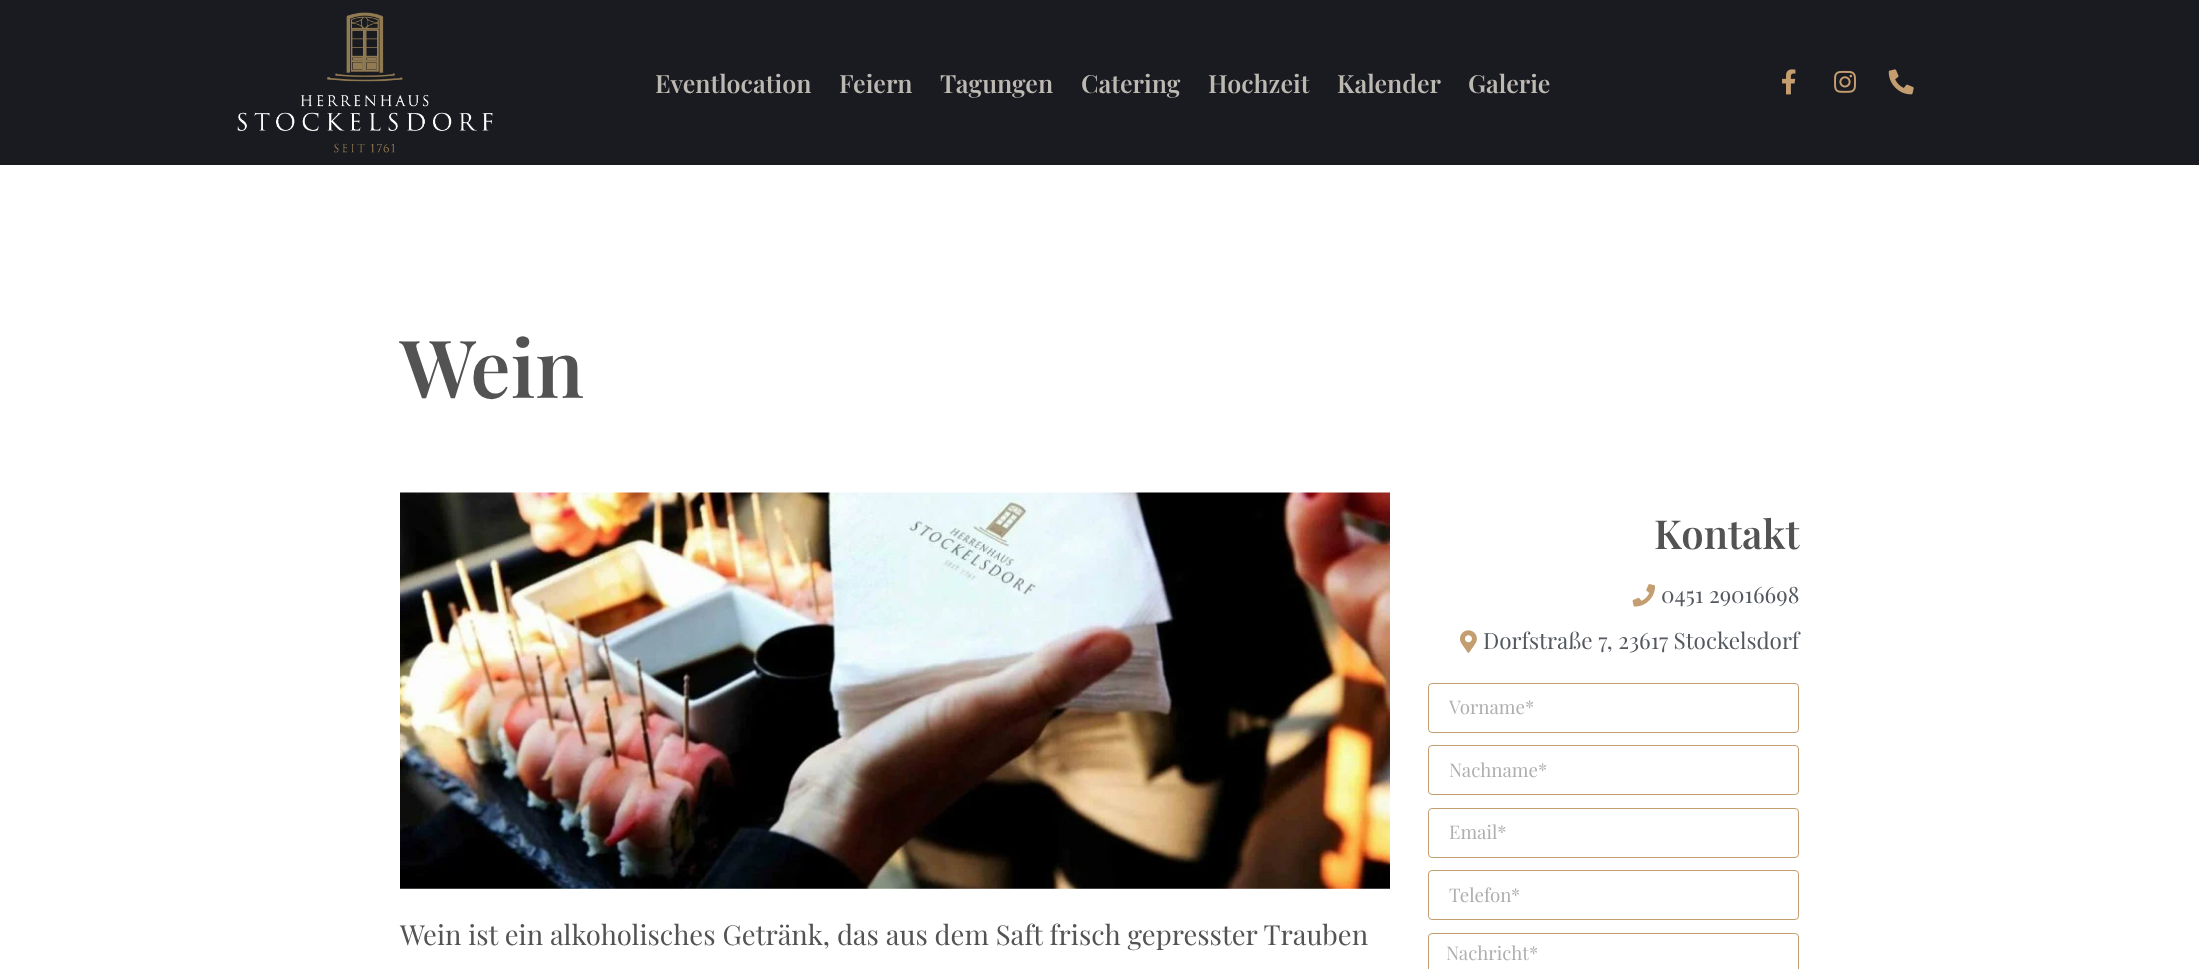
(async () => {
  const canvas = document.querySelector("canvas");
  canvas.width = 2199;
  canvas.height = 969;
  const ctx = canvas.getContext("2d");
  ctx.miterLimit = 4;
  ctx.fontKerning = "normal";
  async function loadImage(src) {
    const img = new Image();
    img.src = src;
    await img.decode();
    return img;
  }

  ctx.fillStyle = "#ffffff";
  ctx.fillRect(0, 0, 2199, 969);
  ctx.fillStyle = "#1a1b20";
  ctx.fillRect(0, 0, 2199, 165);
  ctx.drawImage(await loadImage("img/1.png"), 237, 12, 256, 141);
  ctx.drawImage(await loadImage("img/2.png"), 1782, 69, 14, 26);
  ctx.drawImage(await loadImage("img/3.png"), 1834, 70, 22, 23);
  ctx.drawImage(await loadImage("img/4.png"), 1888, 69, 26, 26);
  ctx.drawImage(await loadImage("img/5.png"), 400, 492, 990, 397);
  ctx.drawImage(await loadImage("img/6.png"), 1632, 584, 23, 23);
  ctx.drawImage(await loadImage("img/7.png"), 1460, 630, 17, 23);
  ctx.beginPath();
  ctx.roundRect(1428.5, 683.5, 370, 49, 3.5);
  ctx.strokeStyle = "#c49e71";
  ctx.stroke();
  ctx.beginPath();
  ctx.roundRect(1428.5, 745.5, 370, 49, 3.5);
  ctx.stroke();
  ctx.beginPath();
  ctx.roundRect(1428.5, 808.5, 370, 49, 3.5);
  ctx.stroke();
  ctx.beginPath();
  ctx.roundRect(1428.5, 870.5, 370, 49, 3.5);
  ctx.stroke();
  ctx.beginPath();
  ctx.roundRect(1428.5, 933.5, 370, 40, 3.5);
  ctx.stroke();
  ctx.font = "600 25px Playfair Display";
  ctx.fillStyle = "#bcb8b2";
  for (const [text, x, y] of [
    ["Eventlocation", 655, 93],
    ["Feiern", 839, 93],
    ["Tagungen", 940, 93],
    ["Catering", 1081, 93],
    ["Hochzeit", 1208, 93],
    ["Kalender", 1337, 93],
    ["Galerie", 1468, 93],
  ]) {
    ctx.fillText(text, x, y);
  }
  ctx.font = "600 80px Playfair Display";
  ctx.fillStyle = "#535353";
  ctx.fillText("Wein", 400, 398);
  ctx.font = "27.5px Playfair Display";
  ctx.fillText("Wein ist ein alkoholisches Getränk, das aus dem Saft frisch gepresster Trauben", 400, 945);
  ctx.font = "600 40px Playfair Display";
  ctx.fillText("Kontakt", 1654, 549);
  ctx.font = "22.5px Playfair Display";
  ctx.fillStyle = "#54595f";
  ctx.fillText("0451 29016698", 1661, 603);
  ctx.fillText("Dorfstraße 7, 23617 Stockelsdorf", 1483, 649);
  ctx.font = "18.75px Playfair Display";
  ctx.fillStyle = "#afafaf";
  for (const [text, x, y] of [
    ["Vorname*", 1449, 714],
    ["Nachname*", 1449, 777],
    ["Email*", 1449, 839],
    ["Telefon*", 1449, 902],
    ["Nachricht*", 1446, 960],
  ]) {
    ctx.fillText(text, x, y);
  }
})();
